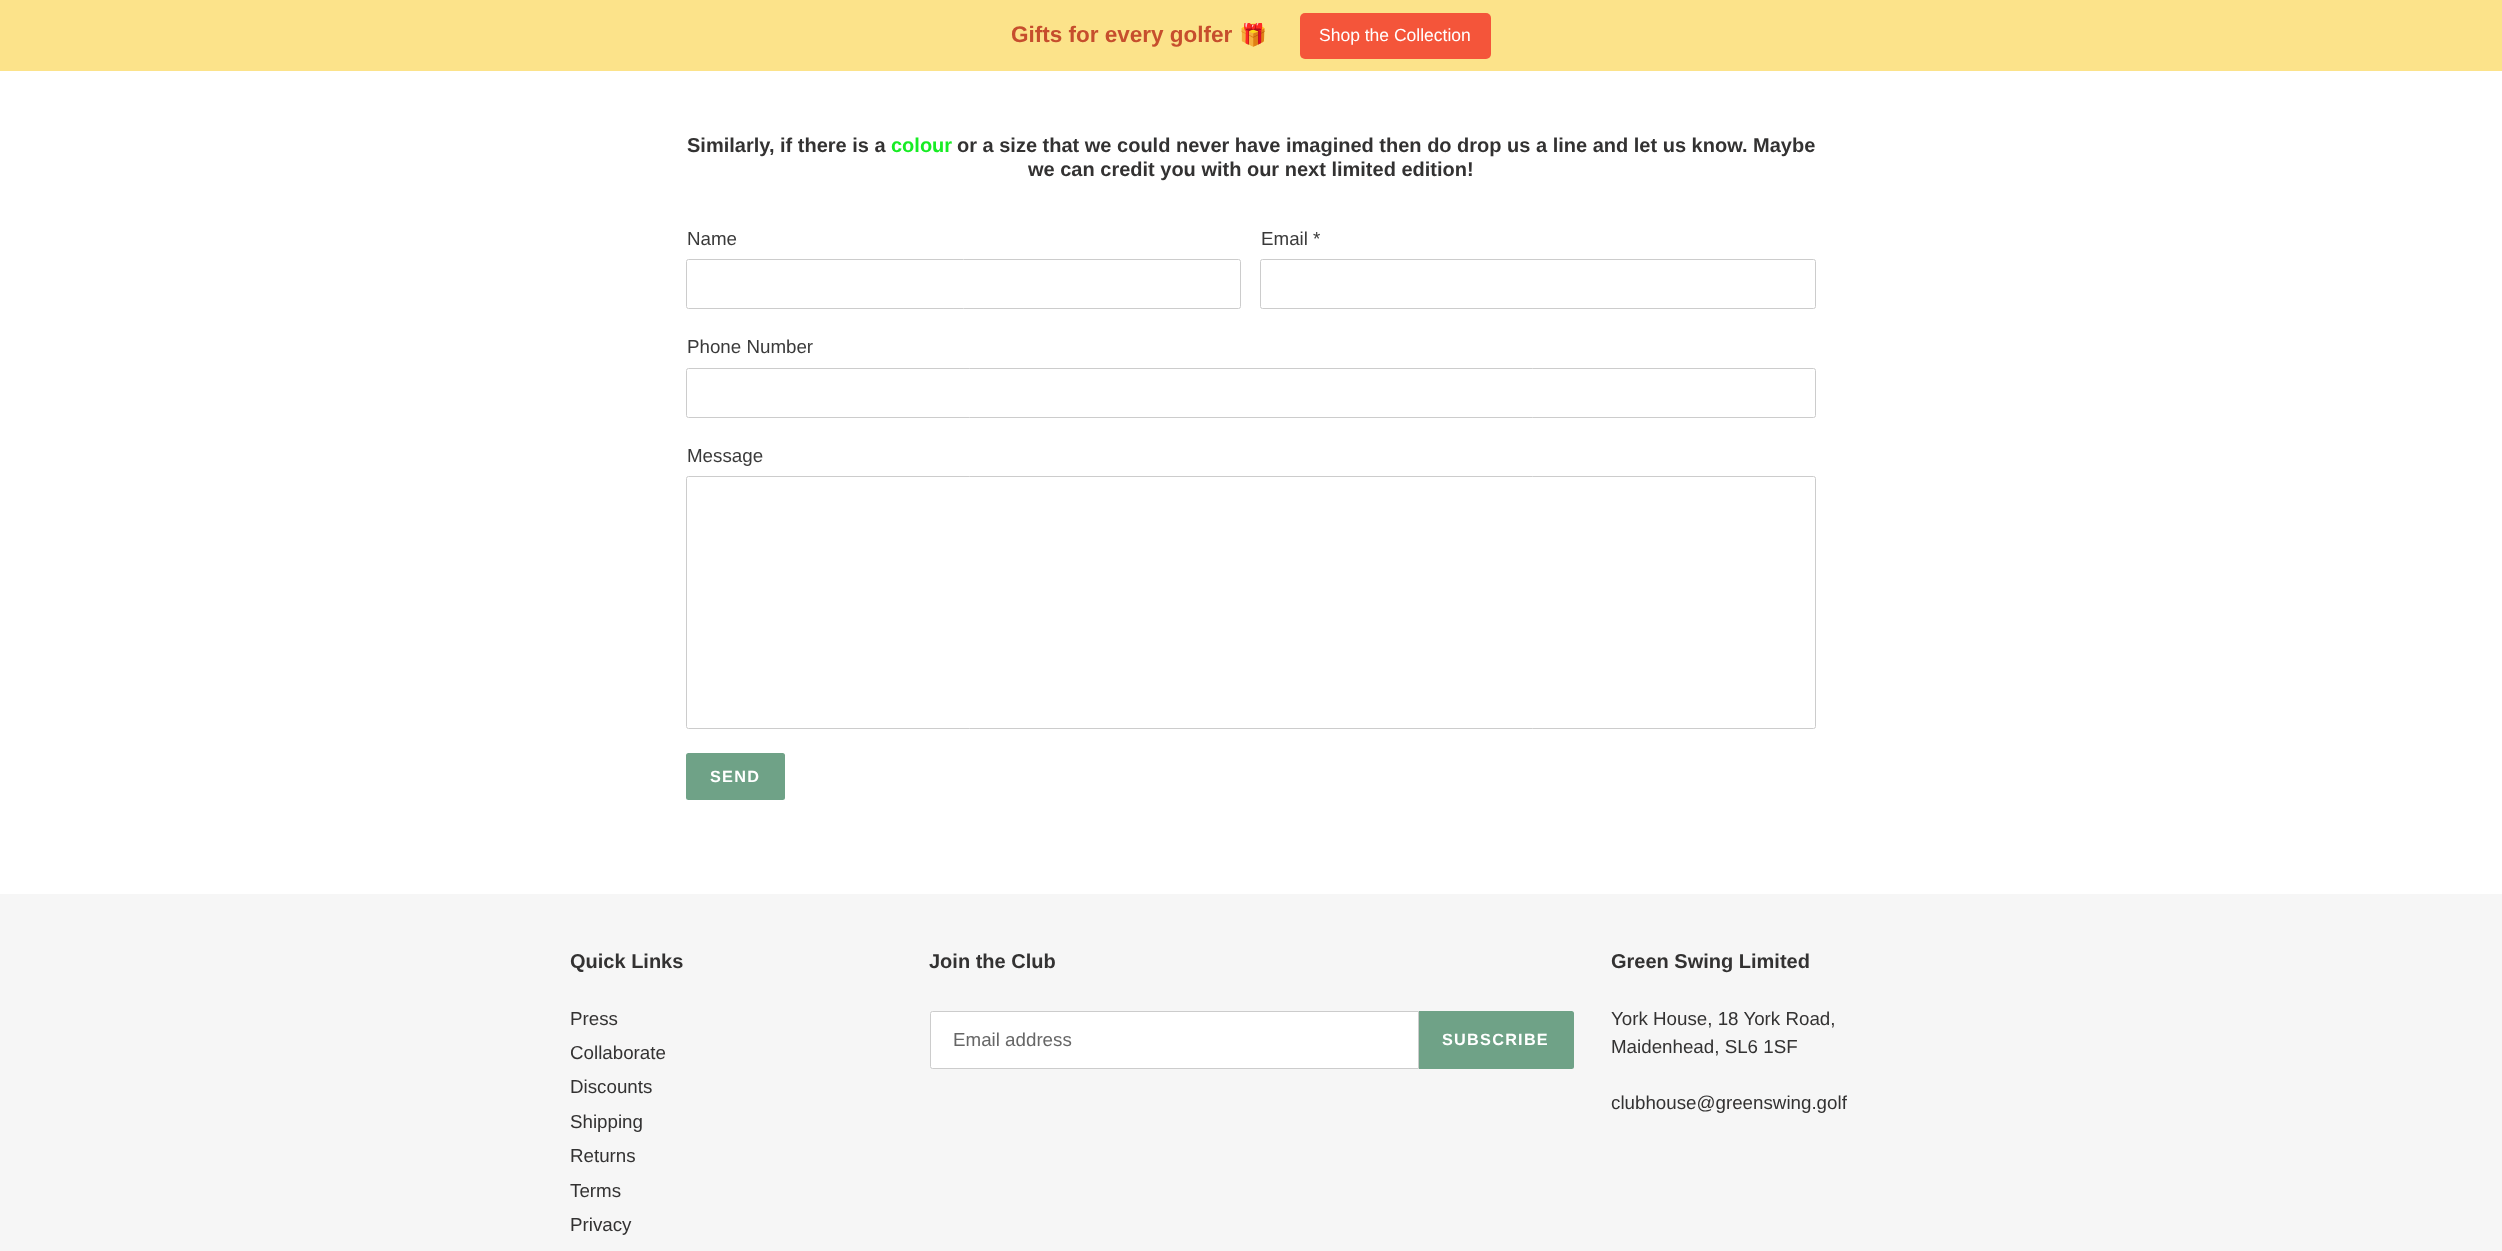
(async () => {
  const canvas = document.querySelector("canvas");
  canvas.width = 2502;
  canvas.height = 1251;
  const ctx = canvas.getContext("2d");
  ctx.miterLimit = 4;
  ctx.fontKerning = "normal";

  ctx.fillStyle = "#ffffff";
  ctx.fillRect(0, 0, 2502, 1251);
  ctx.fillStyle = "#fce38a";
  ctx.fillRect(0, 0, 2502, 71);
  ctx.fillStyle = "#f4553a";
  ctx.beginPath();
  ctx.roundRect(1300, 13, 191, 46, 5);
  ctx.fill();
  ctx.beginPath();
  ctx.roundRect(686.5, 259.5, 554, 49, 2);
  ctx.strokeStyle = "#cccccc";
  ctx.stroke();
  ctx.beginPath();
  ctx.roundRect(1260.5, 259.5, 555, 49, 2);
  ctx.stroke();
  ctx.beginPath();
  ctx.roundRect(686.5, 368.5, 1129, 49, 2);
  ctx.stroke();
  ctx.beginPath();
  ctx.roundRect(686.5, 476.5, 1129, 252, 2);
  ctx.stroke();
  ctx.fillStyle = "#6fa287";
  ctx.beginPath();
  ctx.roundRect(686, 753, 99, 47, 2.5);
  ctx.fill();
  ctx.fillStyle = "#f6f6f6";
  ctx.fillRect(0, 894, 2502, 357);
  ctx.fillStyle = "#ffffff";
  ctx.beginPath();
  ctx.roundRect(930.5, 1011.5, 488, 57, [2, 0, 0, 2]);
  ctx.fill();
  ctx.stroke();
  ctx.fillStyle = "#6fa287";
  ctx.beginPath();
  ctx.roundRect(1419, 1011, 155, 58, [0, 2.5, 2.5, 0]);
  ctx.fill();
  ctx.font = "bold 22.5px Liberation Sans";
  ctx.fillStyle = "#c64e2d";
  ctx.fillText("Gifts for every golfer", 1011, 42);
  ctx.save();
  ctx.beginPath();
  ctx.rect(1011, 23, 257, 26);
  ctx.clip();
  ctx.font = "bold 22.5px Noto Color Emoji";
  ctx.fillText("🎁", 1239, 42);
  ctx.restore();
  ctx.font = "17.5px Liberation Sans";
  ctx.fillStyle = "#ffffff";
  ctx.fillText("Shop the Collection", 1319, 41);
  ctx.font = "bold 20px Liberation Sans";
  ctx.fillStyle = "#333232";
  ctx.fillText("Similarly, if there is a", 687, 152);
  ctx.fillStyle = "#17ec24";
  ctx.fillText("colour", 891, 152);
  ctx.fillStyle = "#333232";
  ctx.fillText("or a size that we could never have imagined then do drop us a line and let us know. Maybe", 957, 152);
  ctx.fillText("we can credit you with our next limited edition!", 1028, 176);
  ctx.font = "18.75px Liberation Sans";
  ctx.fillStyle = "#3a3a3a";
  for (const [text, x, y] of [
    ["Name", 687, 245],
    ["Email *", 1261, 245],
    ["Phone Number", 687, 353],
    ["Message", 687, 462],
  ]) {
    ctx.fillText(text, x, y);
  }
  ctx.letterSpacing = "1.25px";
  ctx.font = "bold 16.25px Liberation Sans";
  ctx.fillStyle = "#ffffff";
  ctx.fillText("SEND", 710, 782);
  ctx.letterSpacing = "0px";
  ctx.font = "bold 20px Liberation Sans";
  ctx.fillStyle = "#333232";
  ctx.fillText("Quick Links", 570, 968);
  ctx.font = "18.75px Liberation Sans";
  for (const [text, x, y] of [
    ["Press", 570, 1025],
    ["Collaborate", 570, 1059],
    ["Discounts", 570, 1093],
    ["Shipping", 570, 1128],
    ["Returns", 570, 1162],
    ["Terms", 570, 1197],
    ["Privacy", 570, 1231],
  ]) {
    ctx.fillText(text, x, y);
  }
  ctx.font = "bold 20px Liberation Sans";
  ctx.fillText("Join the Club", 929, 968);
  ctx.font = "18.75px Liberation Sans";
  ctx.fillStyle = "#666666";
  ctx.fillText("Email address", 953, 1046);
  ctx.letterSpacing = "1.25px";
  ctx.font = "bold 16.25px Liberation Sans";
  ctx.fillStyle = "#ffffff";
  ctx.fillText("SUBSCRIBE", 1442, 1045);
  ctx.letterSpacing = "0px";
  ctx.font = "bold 20px Liberation Sans";
  ctx.fillStyle = "#333232";
  ctx.fillText("Green Swing Limited", 1611, 968);
  ctx.font = "18.75px Liberation Sans";
  for (const [text, x, y] of [
    ["York House, 18 York Road,", 1611, 1025],
    ["Maidenhead, SL6 1SF", 1611, 1053],
    ["clubhouse@greenswing.golf", 1611, 1109],
  ]) {
    ctx.fillText(text, x, y);
  }
})();
